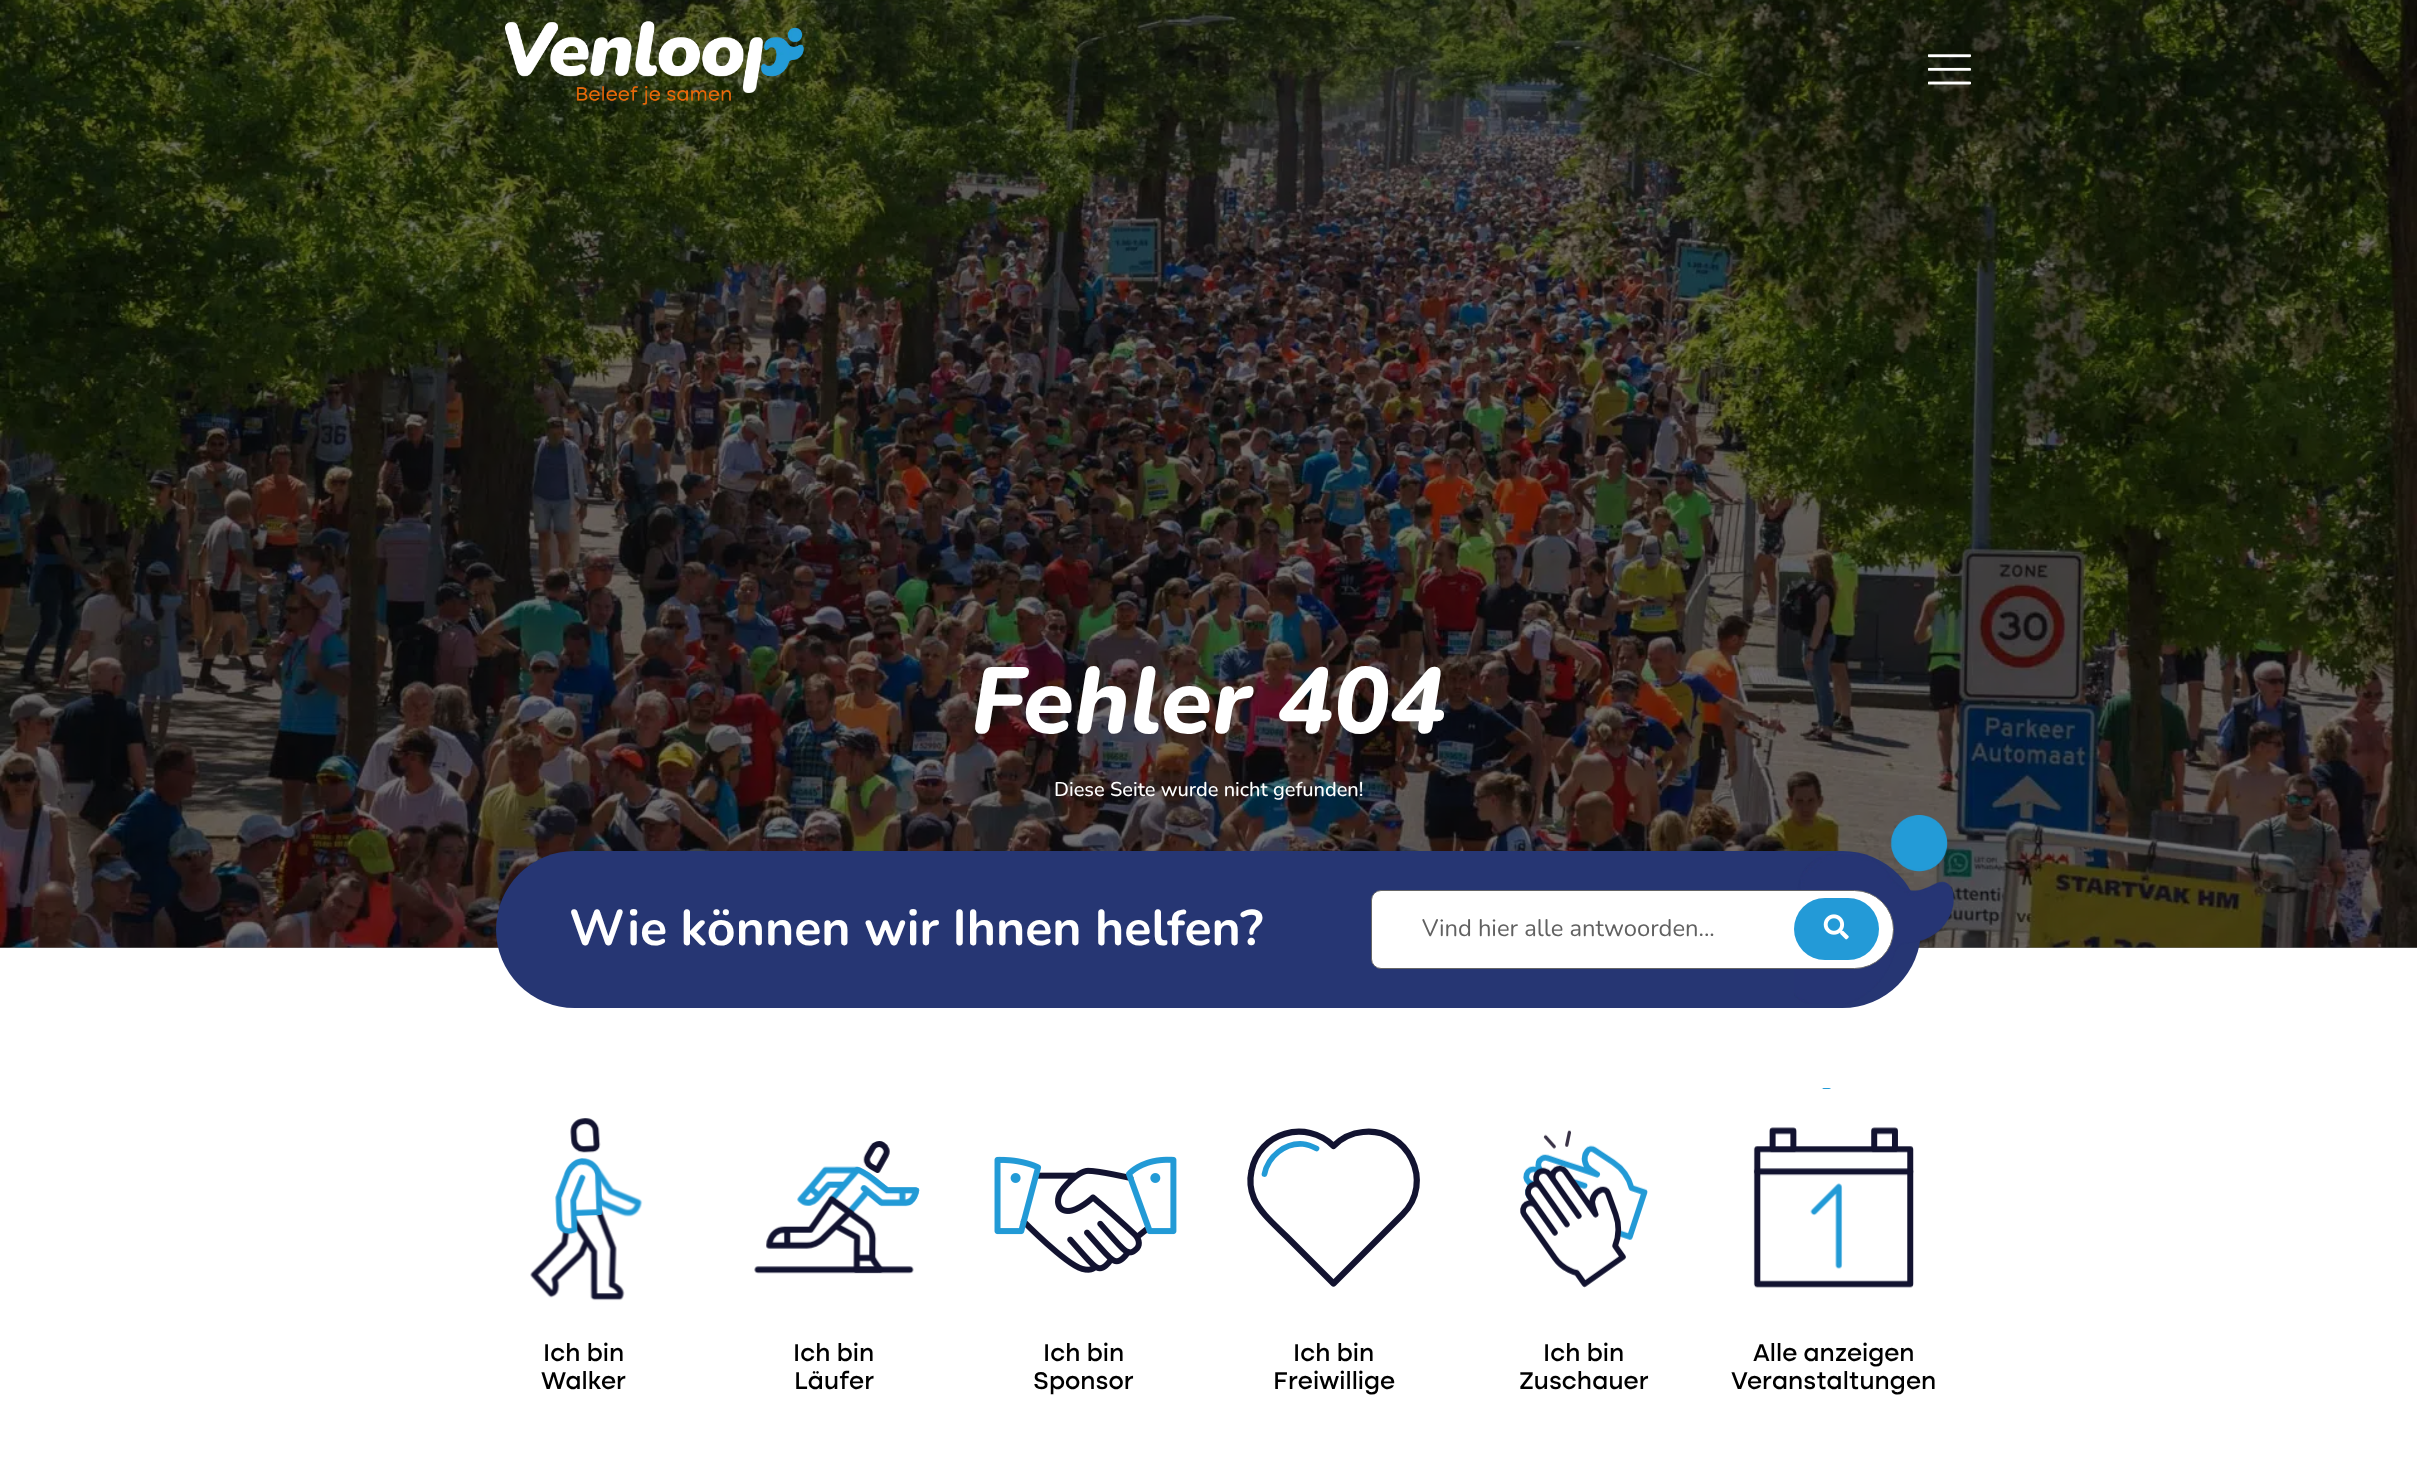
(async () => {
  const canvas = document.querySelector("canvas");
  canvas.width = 2417;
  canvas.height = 1457;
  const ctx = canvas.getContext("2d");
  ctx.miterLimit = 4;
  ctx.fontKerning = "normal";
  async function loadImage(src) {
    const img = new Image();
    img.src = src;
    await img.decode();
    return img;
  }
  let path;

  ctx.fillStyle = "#ffffff";
  ctx.fillRect(0, 0, 2417, 1457);
  ctx.fillStyle = "#737373";
  ctx.fillRect(0, 947, 2417, 1);
  ctx.drawImage(await loadImage("img/3.png"), 0, 0, 2417, 948);
  ctx.drawImage(await loadImage("img/1.png"), 505, 21, 299, 84);
  ctx.drawImage(await loadImage("img/2.png"), 1928, 54, 43, 31);
  ctx.fillStyle = "#263673";
  ctx.beginPath();
  ctx.roundRect(496, 851, 1425, 157, 78.5);
  ctx.fill();
  ctx.drawImage(await loadImage("img/5.png"), 1794, 815, 160, 189);
  ctx.fillStyle = "#ffffff";
  ctx.beginPath();
  ctx.roundRect(1371.5, 890.5, 522, 78, [9.5, 39, 39, 9.5]);
  ctx.fill();
  ctx.strokeStyle = "#666666";
  ctx.stroke();
  ctx.fillStyle = "#239ad7";
  ctx.beginPath();
  ctx.roundRect(1794, 898, 85, 62, 31);
  ctx.fill();
  ctx.drawImage(await loadImage("img/4.png"), 1823, 914, 26, 26);
  ctx.drawImage(await loadImage("img/6.png"), 530, 1118, 113, 183);
  ctx.drawImage(await loadImage("img/7.png"), 754, 1141, 166, 133);
  ctx.drawImage(await loadImage("img/8.png"), 994, 1156, 183, 117);
  path = new Path2D("M1402.5 1214.5C1435 1182.5 1408 1127 1363 1132C1352 1133 1341.5 1138 1333.5 1146C1306 1119 1259 1132 1251.5 1171C1249.5 1180 1250.5 1190 1254 1198.5C1260 1212.5 1276 1226 1286.5 1236.5L1333.5 1283.5Z");
  ctx.strokeStyle = "#121330";
  ctx.lineWidth = 6.2;
  ctx.lineCap = "round";
  ctx.lineJoin = "round";
  ctx.stroke(path);
  path = new Path2D("M1316.5 1148.5C1312.5 1146.5 1308 1144.5 1303 1144C1285 1142.5 1268 1156.5 1264.5 1174");
  ctx.strokeStyle = "#229ad6";
  ctx.lineWidth = 5.7;
  ctx.stroke(path);
  ctx.drawImage(await loadImage("img/9.png"), 1520, 1130, 128, 158);
  ctx.drawImage(await loadImage("img/10.png"), 1753, 1088, 161, 200);
  ctx.font = "italic 800 93.75px Nunito";
  ctx.fillStyle = "#ffffff";
  ctx.fillText("Fehler 404", 971, 733);
  ctx.font = "500 20px Nunito";
  ctx.fillText("Diese Seite wurde nicht gefunden!", 1054, 796);
  ctx.font = "bold 50px Nunito";
  ctx.fillText("Wie können wir Ihnen helfen?", 569, 945);
  ctx.font = "23.75px Nunito";
  ctx.fillStyle = "#616161";
  ctx.fillText("Vind hier alle antwoorden...", 1422, 936);
  ctx.font = "500 25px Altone";
  ctx.fillStyle = "#000000";
  for (const [text, x, y] of [
    ["Ich bin", 543, 1361],
    ["Walker", 541, 1389],
    ["Ich bin", 793, 1361],
    ["Läufer", 794, 1389],
    ["Ich bin", 1043, 1361],
    ["Sponsor", 1033, 1389],
    ["Ich bin", 1293, 1361],
    ["Freiwillige", 1273, 1389],
    ["Ich bin", 1543, 1361],
    ["Zuschauer", 1519, 1389],
    ["Alle anzeigen", 1753, 1361],
    ["Veranstaltungen", 1731, 1389],
  ]) {
    ctx.fillText(text, x, y);
  }
})();
